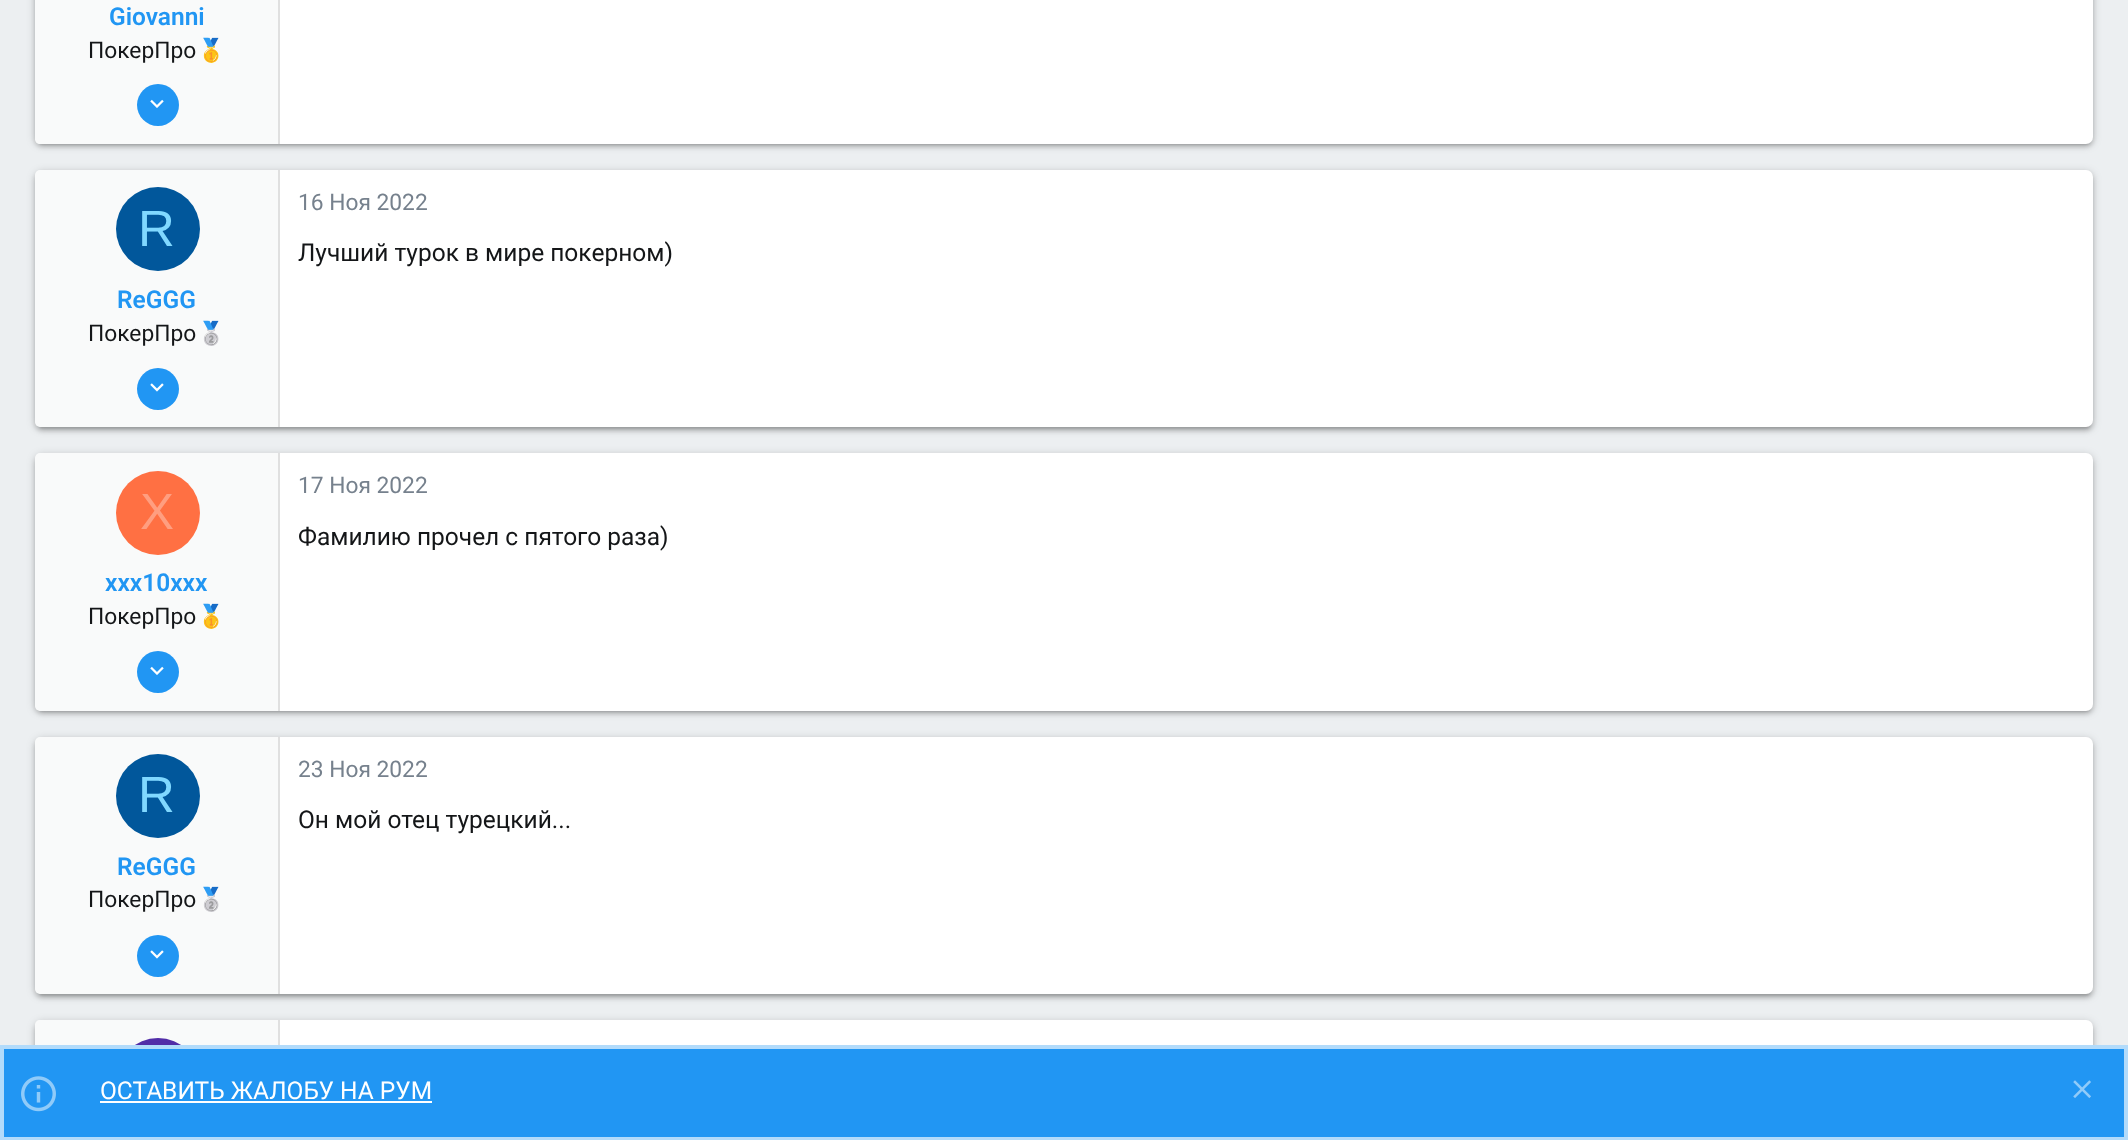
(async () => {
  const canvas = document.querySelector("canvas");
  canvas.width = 2128;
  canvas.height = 1140;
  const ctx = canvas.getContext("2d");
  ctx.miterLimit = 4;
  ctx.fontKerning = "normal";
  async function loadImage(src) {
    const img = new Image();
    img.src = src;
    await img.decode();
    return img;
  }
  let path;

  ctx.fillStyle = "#eceff1";
  ctx.fillRect(0, 0, 2128, 1140);
  ctx.fillStyle = "rgba(0, 0, 0, 0.2)";
  ctx.filter = "blur(4.5px)";
  ctx.beginPath();
  ctx.roundRect(35, -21, 2058, 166, 7);
  ctx.fill();
  ctx.filter = "none";
  ctx.fillStyle = "rgba(0, 0, 0, 0.12)";
  ctx.filter = "blur(1px)";
  ctx.beginPath();
  ctx.roundRect(39, -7, 2051, 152, 4);
  ctx.fill();
  ctx.filter = "none";
  ctx.fillStyle = "rgba(0, 0, 0, 0.14)";
  ctx.filter = "blur(2px)";
  ctx.beginPath();
  ctx.roundRect(35, -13, 2058, 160, 7);
  ctx.fill();
  ctx.filter = "none";
  ctx.fillStyle = "#ffffff";
  ctx.beginPath();
  ctx.roundRect(35, -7, 2058, 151, 7);
  ctx.fill();
  ctx.fillStyle = "#f9fafa";
  path = new Path2D("M40-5H280V144H40C37 144 35 142 35 139V0C35-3 37-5 40-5Z");
  ctx.fill(path);
  ctx.fillStyle = "#e0e0e0";
  ctx.fillRect(278, 0, 2, 144);
  ctx.fillStyle = "#2196f3";
  ctx.beginPath();
  ctx.arc(158, 105, 21, 0, Math.PI * 2);
  ctx.fill();
  ctx.drawImage(await loadImage("img/1.png"), 150, 99, 14, 9);
  ctx.fillStyle = "rgba(0, 0, 0, 0.2)";
  ctx.filter = "blur(4.5px)";
  ctx.beginPath();
  ctx.roundRect(35, 172, 2058, 257, 7);
  ctx.fill();
  ctx.filter = "none";
  ctx.fillStyle = "rgba(0, 0, 0, 0.12)";
  ctx.filter = "blur(1px)";
  ctx.beginPath();
  ctx.roundRect(39, 179, 2051, 250, 4);
  ctx.fill();
  ctx.filter = "none";
  ctx.fillStyle = "rgba(0, 0, 0, 0.14)";
  ctx.filter = "blur(2px)";
  ctx.beginPath();
  ctx.roundRect(35, 173, 2058, 258, 7);
  ctx.fill();
  ctx.filter = "none";
  ctx.fillStyle = "#ffffff";
  ctx.beginPath();
  ctx.roundRect(35, 170, 2058, 257, 7);
  ctx.fill();
  ctx.fillStyle = "#f9fafa";
  ctx.beginPath();
  ctx.roundRect(35, 170, 245, 257, [5, 0, 0, 5]);
  ctx.fill();
  ctx.fillStyle = "#e0e0e0";
  ctx.fillRect(278, 170, 2, 257);
  ctx.fillStyle = "#01579b";
  ctx.beginPath();
  ctx.arc(158, 229, 42, 0, Math.PI * 2);
  ctx.fill();
  ctx.fillStyle = "#2196f3";
  ctx.beginPath();
  ctx.arc(158, 389, 21, 0, Math.PI * 2);
  ctx.fill();
  ctx.drawImage(await loadImage("img/2.png"), 150, 383, 14, 9);
  ctx.fillStyle = "rgba(0, 0, 0, 0.2)";
  ctx.filter = "blur(4.5px)";
  ctx.beginPath();
  ctx.roundRect(35, 455, 2058, 257, 7);
  ctx.fill();
  ctx.filter = "none";
  ctx.fillStyle = "rgba(0, 0, 0, 0.12)";
  ctx.filter = "blur(1px)";
  ctx.beginPath();
  ctx.roundRect(39, 462, 2051, 250, 4);
  ctx.fill();
  ctx.filter = "none";
  ctx.fillStyle = "rgba(0, 0, 0, 0.14)";
  ctx.filter = "blur(2px)";
  ctx.beginPath();
  ctx.roundRect(35, 457, 2058, 257, 7);
  ctx.fill();
  ctx.filter = "none";
  ctx.fillStyle = "#ffffff";
  ctx.beginPath();
  ctx.roundRect(35, 453, 2058, 258, 7);
  ctx.fill();
  ctx.fillStyle = "#f9fafa";
  ctx.beginPath();
  ctx.roundRect(35, 453, 245, 258, [5, 0, 0, 5]);
  ctx.fill();
  ctx.fillStyle = "#e0e0e0";
  ctx.fillRect(278, 453, 2, 258);
  ctx.fillStyle = "#ff7043";
  ctx.beginPath();
  ctx.arc(158, 513, 42, 0, Math.PI * 2);
  ctx.fill();
  ctx.fillStyle = "#2196f3";
  ctx.beginPath();
  ctx.arc(158, 672, 21, 0, Math.PI * 2);
  ctx.fill();
  ctx.drawImage(await loadImage("img/1.png"), 150, 666, 14, 9);
  ctx.fillStyle = "rgba(0, 0, 0, 0.2)";
  ctx.filter = "blur(4.5px)";
  ctx.beginPath();
  ctx.roundRect(35, 739, 2058, 257, 7);
  ctx.fill();
  ctx.filter = "none";
  ctx.fillStyle = "rgba(0, 0, 0, 0.12)";
  ctx.filter = "blur(1px)";
  ctx.beginPath();
  ctx.roundRect(39, 746, 2051, 250, 4);
  ctx.fill();
  ctx.filter = "none";
  ctx.fillStyle = "rgba(0, 0, 0, 0.14)";
  ctx.filter = "blur(2px)";
  ctx.beginPath();
  ctx.roundRect(35, 740, 2058, 258, 7);
  ctx.fill();
  ctx.filter = "none";
  ctx.fillStyle = "#ffffff";
  ctx.beginPath();
  ctx.roundRect(35, 737, 2058, 257, 7);
  ctx.fill();
  ctx.fillStyle = "#f9fafa";
  ctx.beginPath();
  ctx.roundRect(35, 737, 245, 257, [5, 0, 0, 5]);
  ctx.fill();
  ctx.fillStyle = "#e0e0e0";
  ctx.fillRect(278, 737, 2, 257);
  ctx.fillStyle = "#01579b";
  ctx.beginPath();
  ctx.arc(158, 796, 42, 0, Math.PI * 2);
  ctx.fill();
  ctx.fillStyle = "#2196f3";
  ctx.beginPath();
  ctx.arc(158, 956, 21, 0, Math.PI * 2);
  ctx.fill();
  ctx.drawImage(await loadImage("img/2.png"), 150, 950, 14, 9);
  ctx.fillStyle = "rgba(0, 0, 0, 0.2)";
  ctx.filter = "blur(4.5px)";
  ctx.beginPath();
  ctx.roundRect(35, 1022, 2058, 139, 7);
  ctx.fill();
  ctx.filter = "none";
  ctx.fillStyle = "rgba(0, 0, 0, 0.14)";
  ctx.filter = "blur(2px)";
  ctx.beginPath();
  ctx.roundRect(35, 1024, 2058, 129, 7);
  ctx.fill();
  ctx.filter = "none";
  ctx.fillStyle = "#ffffff";
  ctx.beginPath();
  ctx.roundRect(35, 1020, 2058, 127, 7);
  ctx.fill();
  ctx.fillStyle = "#f9fafa";
  path = new Path2D("M40 1020H280V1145H40C37 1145 35 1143 35 1140V1025C35 1022 37 1020 40 1020Z");
  ctx.fill(path);
  ctx.fillStyle = "#e0e0e0";
  ctx.fillRect(278, 1020, 2, 25);
  ctx.fillStyle = "#512da8";
  ctx.beginPath();
  ctx.arc(158, 1080, 42, 0, Math.PI * 2);
  ctx.fill();
  ctx.fillStyle = "#2196f3";
  ctx.beginPath();
  ctx.rect(2, 1047, 2124, 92);
  ctx.fill();
  ctx.strokeStyle = "#b2dbfb";
  ctx.lineWidth = 4;
  ctx.stroke();
  ctx.drawImage(await loadImage("img/3.png"), 21, 1076, 35, 36);
  ctx.fillStyle = "#ffffff";
  ctx.fillRect(100, 1101, 332, 2);
  ctx.drawImage(await loadImage("img/4.png"), 2073, 1080, 18, 18);
  ctx.font = "600 24.5px Roboto";
  ctx.fillStyle = "#2196f3";
  ctx.fillText("Giovanni", 109, 25);
  ctx.font = "22.75px Roboto";
  ctx.fillStyle = "#141618";
  ctx.fillText("ПокерПро", 88, 58);
  ctx.font = "22.75px Noto Color Emoji";
  ctx.fillText("🥇", 197, 58);
  ctx.font = "51px Liberation Sans";
  ctx.fillStyle = "#80d8ff";
  ctx.fillText("R", 138, 246);
  ctx.font = "600 24.5px Roboto";
  ctx.fillStyle = "#2196f3";
  ctx.fillText("ReGGG", 117, 308);
  ctx.font = "22.75px Roboto";
  ctx.fillStyle = "#141618";
  ctx.fillText("ПокерПро", 88, 341);
  ctx.font = "22.75px Noto Color Emoji";
  ctx.fillText("🥈", 197, 341);
  ctx.font = "22.75px Roboto";
  ctx.fillStyle = "#76818d";
  ctx.fillText("16 Ноя 2022", 298, 210);
  ctx.font = "24.5px Roboto";
  ctx.fillStyle = "#141618";
  ctx.fillText("Лучший турок в мире покерном)", 298, 261);
  ctx.font = "51px Liberation Sans";
  ctx.fillStyle = "#ff9e80";
  ctx.fillText("X", 140, 529);
  ctx.font = "600 24.5px Roboto";
  ctx.fillStyle = "#2196f3";
  ctx.fillText("xxx10xxx", 105, 591);
  ctx.font = "22.75px Roboto";
  ctx.fillStyle = "#141618";
  ctx.fillText("ПокерПро", 88, 624);
  ctx.font = "22.75px Noto Color Emoji";
  ctx.fillText("🥇", 197, 624);
  ctx.font = "22.75px Roboto";
  ctx.fillStyle = "#76818d";
  ctx.fillText("17 Ноя 2022", 298, 493);
  ctx.font = "24.5px Roboto";
  ctx.fillStyle = "#141618";
  ctx.fillText("Фамилию прочел с пятого раза)", 298, 545);
  ctx.font = "51px Liberation Sans";
  ctx.fillStyle = "#80d8ff";
  ctx.fillText("R", 138, 812);
  ctx.font = "600 24.5px Roboto";
  ctx.fillStyle = "#2196f3";
  ctx.fillText("ReGGG", 117, 875);
  ctx.font = "22.75px Roboto";
  ctx.fillStyle = "#141618";
  ctx.fillText("ПокерПро", 88, 907);
  ctx.font = "22.75px Noto Color Emoji";
  ctx.fillText("🥈", 197, 907);
  ctx.font = "22.75px Roboto";
  ctx.fillStyle = "#76818d";
  ctx.fillText("23 Ноя 2022", 298, 777);
  ctx.font = "24.5px Roboto";
  ctx.fillStyle = "#141618";
  ctx.fillText("Он мой отец турецкий...", 298, 828);
  ctx.fillStyle = "#ffffff";
  ctx.fillText("ОСТАВИТЬ ЖАЛОБУ НА РУМ", 100, 1099);
})();
